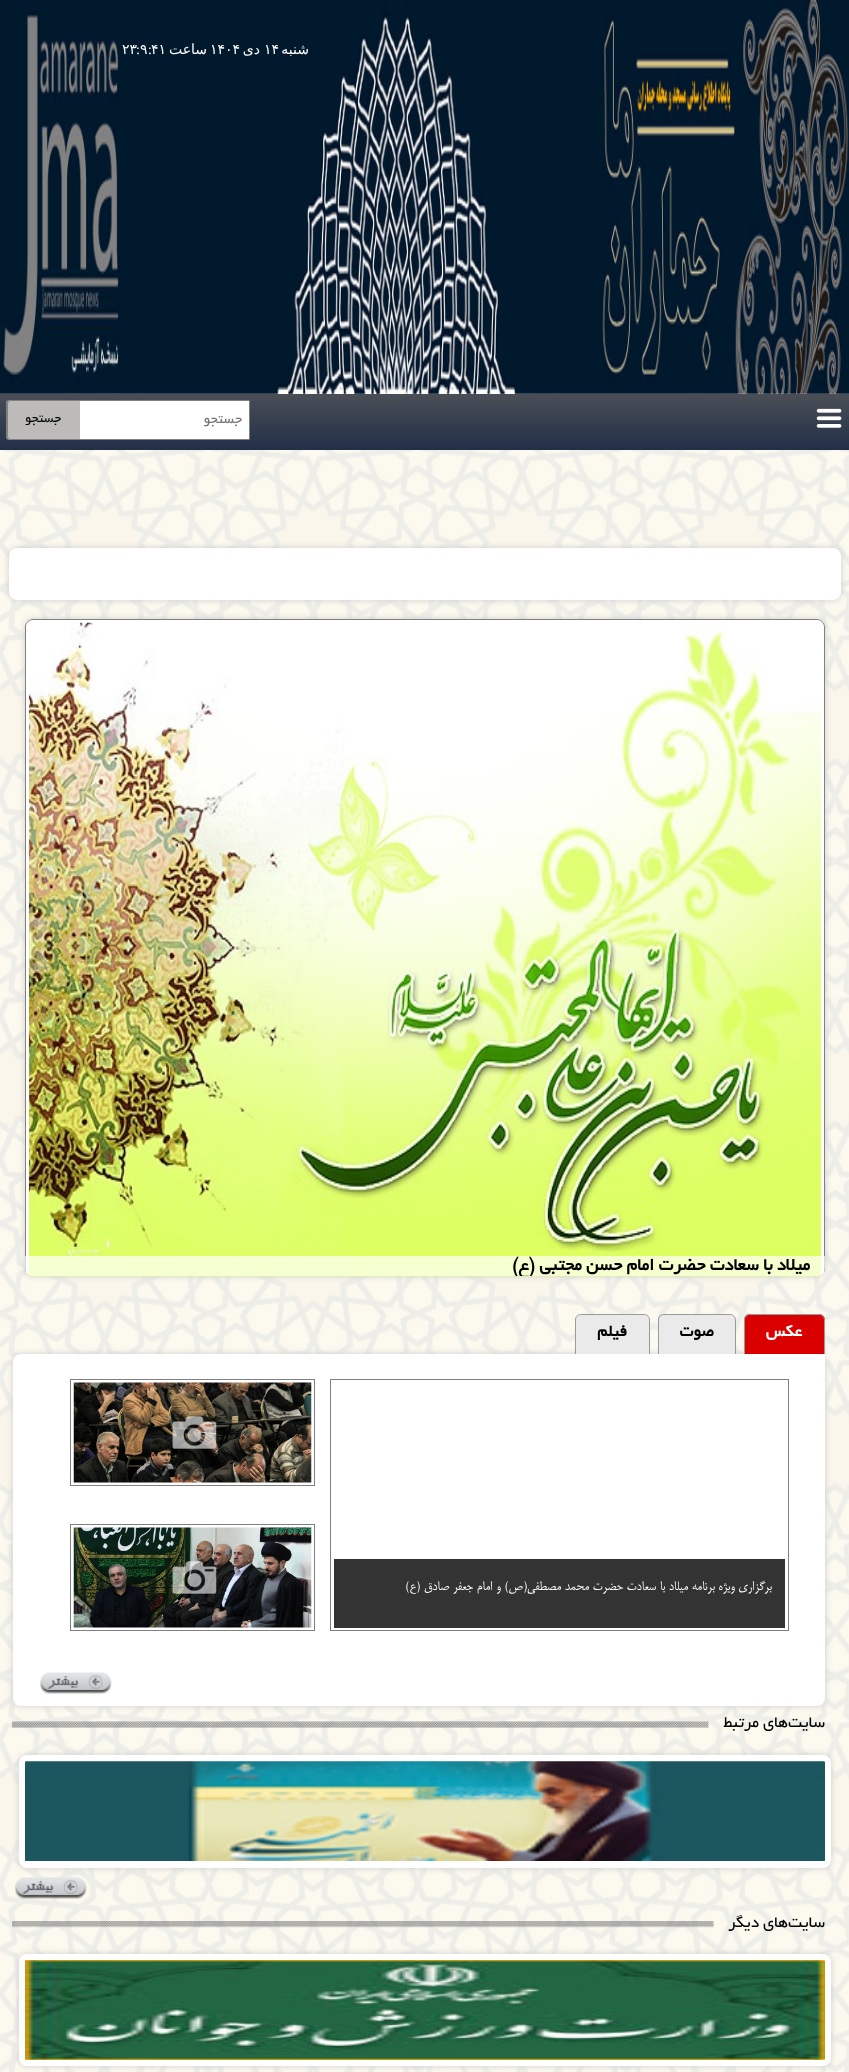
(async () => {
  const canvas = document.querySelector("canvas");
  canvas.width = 849;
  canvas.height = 2072;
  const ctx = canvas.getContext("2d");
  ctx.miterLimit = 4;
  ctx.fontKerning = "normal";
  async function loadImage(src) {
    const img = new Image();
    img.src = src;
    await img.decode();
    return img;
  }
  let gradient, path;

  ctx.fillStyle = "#ffffff";
  ctx.fillRect(0, 0, 849, 2072);
  ctx.drawImage(await loadImage("img/1.png"), 0, 392, 849, 1680);
  ctx.drawImage(await loadImage("img/2.png"), 0, 0, 849, 394);
  gradient = ctx.createLinearGradient(425, 394, 425, 450);
  gradient.addColorStop(0, "#4a4e56");
  gradient.addColorStop(1, "#212f47");
  ctx.fillStyle = gradient;
  ctx.fillRect(0, 394, 849, 56);
  ctx.drawImage(await loadImage("img/3.png"), 816, 408, 26, 20);
  ctx.fillStyle = "#ffffff";
  ctx.beginPath();
  ctx.roundRect(80, 400, 170, 40, [0, 2.5, 2.5, 0]);
  ctx.fill();
  for (const [x, y, w, h, color] of [
    [80, 400, 169, 1, "#808080"],
    [249, 401, 1, 38, "#808080"],
    [80, 439, 169, 1, "#808080"],
  ]) {
    ctx.fillStyle = color;
    ctx.fillRect(x, y, w, h);
  }
  ctx.fillStyle = "#bcbbba";
  ctx.beginPath();
  ctx.roundRect(6, 400, 74, 40, [4, 0, 0, 4]);
  ctx.fill();
  ctx.fillStyle = "#808080";
  path = new Path2D("M10 400H80V440H10C8 440 6 438 6 436V404C6 402 8 400 10 400ZM10 401H80V439H10C9 439 8 438 8 436V404C8 402 9 401 10 401Z");
  ctx.fill(path, "evenodd");
  ctx.fillStyle = "#cccccc";
  ctx.filter = "blur(3px)";
  ctx.beginPath();
  ctx.roundRect(9, 548, 832, 52, 8);
  ctx.fill();
  ctx.filter = "none";
  ctx.fillStyle = "#ffffff";
  ctx.beginPath();
  ctx.roundRect(9, 548, 832, 52, 8);
  ctx.fill();
  ctx.fillStyle = "#cccccc";
  ctx.filter = "blur(3px)";
  ctx.beginPath();
  ctx.roundRect(25, 619, 800, 657, 8);
  ctx.fill();
  ctx.filter = "none";
  ctx.fillStyle = "#ffffff";
  ctx.beginPath();
  ctx.roundRect(25, 619, 800, 657, 8);
  ctx.fill();
  ctx.fillStyle = "#808080";
  path = new Path2D("M33 619C29 619 25 623 25 627V1268C25 1269 25 1271 26 1272V627C26 623 29 620 33 620H817C821 620 824 623 824 627V1272C825 1271 825 1269 825 1268V627C825 623 821 619 817 619Z");
  ctx.fill(path);
  ctx.drawImage(await loadImage("img/4.png"), 28, 622, 794, 655);
  ctx.fillStyle = "rgba(255, 255, 255, 0.7)";
  ctx.beginPath();
  ctx.roundRect(25, 1256, 800, 20, [0, 0, 8, 8]);
  ctx.fill();
  ctx.fillStyle = "#cccccc";
  ctx.filter = "blur(3px)";
  ctx.beginPath();
  ctx.roundRect(13, 1354, 812, 352, 8);
  ctx.fill();
  ctx.filter = "none";
  ctx.fillStyle = "#da0000";
  ctx.beginPath();
  ctx.roundRect(744, 1314, 81, 40, [6, 6, 0, 0]);
  ctx.fill();
  ctx.fillStyle = "#9a9a9b";
  path = new Path2D("M750 1314H819C822 1314 825 1317 825 1320V1354H744V1320C744 1317 747 1314 750 1314ZM750 1315H819C822 1315 824 1317 824 1320V1354H745V1320C745 1317 747 1315 750 1315Z");
  ctx.fill(path, "evenodd");
  ctx.fillStyle = "#eaeaea";
  ctx.beginPath();
  ctx.roundRect(658, 1314, 78, 40, [6, 6, 0, 0]);
  ctx.fill();
  ctx.fillStyle = "#9a9a9b";
  path = new Path2D("M664 1314H730C733 1314 736 1317 736 1320V1354H658V1320C658 1317 660 1314 664 1314ZM664 1315H730C733 1315 735 1317 735 1320V1354H659V1320C659 1317 661 1315 664 1315Z");
  ctx.fill(path, "evenodd");
  ctx.fillStyle = "#eaeaea";
  ctx.beginPath();
  ctx.roundRect(575, 1314, 75, 40, [6, 6, 0, 0]);
  ctx.fill();
  ctx.fillStyle = "#9a9a9b";
  path = new Path2D("M581 1314H644C647 1314 650 1317 650 1320V1354H575V1320C575 1317 578 1314 581 1314ZM581 1315H644C647 1315 649 1317 649 1320V1354H576V1320C576 1317 578 1315 581 1315Z");
  ctx.fill(path, "evenodd");
  ctx.fillStyle = "#ffffff";
  ctx.beginPath();
  ctx.roundRect(13, 1354, 812, 352, [8, 0, 8, 8]);
  ctx.fill();
  ctx.strokeStyle = "#808080";
  ctx.strokeRect(70.5, 1379.5, 244, 106);
  ctx.drawImage(await loadImage("img/5.png"), 73, 1382, 239, 101);
  ctx.drawImage(await loadImage("img/6.png"), 172, 1416, 45, 33);
  ctx.strokeRect(330.5, 1379.5, 458, 251);
  ctx.fillStyle = "#333333";
  ctx.fillRect(334, 1559, 451, 69);
  ctx.strokeRect(70.5, 1524.5, 244, 106);
  ctx.drawImage(await loadImage("img/7.png"), 73, 1527, 239, 101);
  ctx.drawImage(await loadImage("img/8.png"), 172, 1561, 45, 33);
  ctx.drawImage(await loadImage("img/9.png"), 40, 1672, 72, 22);
  ctx.drawImage(await loadImage("img/10.png"), 12, 1721, 697, 7);
  ctx.drawImage(await loadImage("img/12.png"), 15, 1877, 72, 22);
  ctx.fillStyle = "#cccccc";
  ctx.filter = "blur(3px)";
  ctx.beginPath();
  ctx.roundRect(19, 1755, 812, 113, 8);
  ctx.fill();
  ctx.filter = "none";
  ctx.fillStyle = "#ffffff";
  ctx.beginPath();
  ctx.roundRect(22, 1758, 806, 107, 5);
  ctx.fill();
  ctx.strokeStyle = "#ffffff";
  ctx.lineWidth = 6;
  ctx.stroke();
  ctx.drawImage(await loadImage("img/11.png"), 25, 1761, 800, 100);
  ctx.drawImage(await loadImage("img/13.png"), 12, 1921, 702, 7);
  ctx.fillStyle = "#cccccc";
  ctx.filter = "blur(3px)";
  ctx.beginPath();
  ctx.roundRect(19, 1954, 812, 112, 8);
  ctx.fill();
  ctx.filter = "none";
  ctx.beginPath();
  ctx.roundRect(22, 1957, 806, 106, 5);
  ctx.stroke();
  ctx.drawImage(await loadImage("img/14.png"), 25, 1960, 800, 100);
  ctx.direction = "rtl";
  ctx.font = "14px DejaVu Sans";
  ctx.fillStyle = "#ffffff";
  ctx.fillText("شنبه", 309, 54);
  ctx.direction = "ltr";
  ctx.fillText("۱۴", 264, 54);
  ctx.direction = "rtl";
  ctx.fillText("دی", 260, 54);
  ctx.direction = "ltr";
  ctx.fillText("۱۴۰۴", 210, 54);
  ctx.direction = "rtl";
  ctx.fillText("ساعت", 207, 54);
  ctx.direction = "ltr";
  ctx.fillText("۴۱", 151, 54);
  ctx.font = "14px Liberation Serif";
  ctx.fillText(":", 148, 54);
  ctx.font = "14px DejaVu Sans";
  ctx.fillText("۹", 140, 54);
  ctx.font = "14px Liberation Serif";
  ctx.fillText(":", 136, 54);
  ctx.font = "14px DejaVu Sans";
  ctx.fillText("۲۳", 122, 54);
  ctx.direction = "rtl";
  ctx.font = "15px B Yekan";
  ctx.fillStyle = "#757575";
  ctx.fillText("جستجو", 242, 423);
  ctx.font = "14px B Yekan";
  ctx.fillStyle = "#000000";
  ctx.fillText("جستجو", 61, 422);
  ctx.save();
  ctx.beginPath();
  ctx.roundRect(25, 619, 800, 657, 8);
  ctx.clip();
  ctx.font = "bold 18.75px B Yekan";
  ctx.fillText("میلاد با سعادت حضرت امام حسن مجتبی (ع)", 810, 1270);
  ctx.restore();
  ctx.font = "bold 17.5px B Yekan";
  ctx.fillStyle = "#ffffff";
  ctx.fillText("عکس", 802, 1336);
  ctx.fillStyle = "#000000";
  ctx.fillText("صوت", 714, 1336);
  ctx.fillText("فیلم", 627, 1336);
  ctx.font = "15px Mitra";
  ctx.fillStyle = "#ffffff";
  ctx.fillText("برگزاری ویژه برنامه میلاد با سعادت حضرت محمد مصطفی(ص) و امام جعفر صادق (ع)", 772, 1590);
  ctx.font = "17.5px B Yekan";
  ctx.fillStyle = "#000000";
  ctx.fillText("سایت‌های مرتبط", 825, 1727);
  ctx.fillText("سایت‌های دیگر", 825, 1927);
})();
